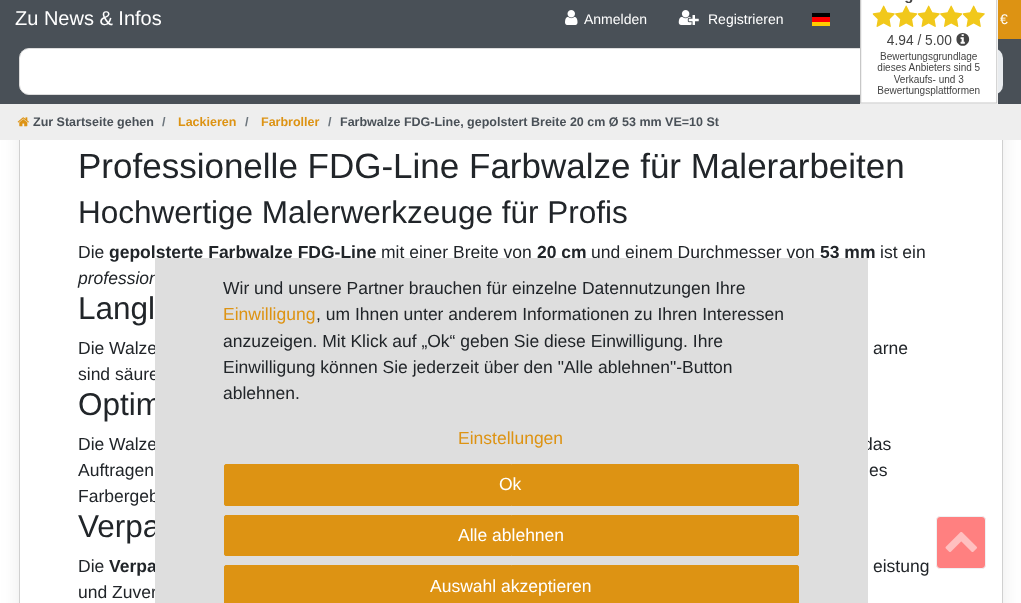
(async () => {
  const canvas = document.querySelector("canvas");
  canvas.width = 1021;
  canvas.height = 603;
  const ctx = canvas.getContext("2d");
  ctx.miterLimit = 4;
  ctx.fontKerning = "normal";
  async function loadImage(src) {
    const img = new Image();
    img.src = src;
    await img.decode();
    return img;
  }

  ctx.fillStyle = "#ffffff";
  ctx.fillRect(0, 0, 1021, 603);
  ctx.fillStyle = "rgba(0, 0, 0, 0.08)";
  ctx.filter = "blur(9.5px)";
  ctx.beginPath();
  ctx.roundRect(19, 60, 984, 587, 15);
  ctx.fill();
  ctx.filter = "none";
  ctx.fillStyle = "#ffffff";
  ctx.fillRect(20, 140, 982, 463);
  ctx.strokeStyle = "#d0d0d0";
  ctx.strokeRect(19.5, 55.5, 983, 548);
  ctx.fillStyle = "#495057";
  ctx.fillRect(0, 39, 1021, 65);
  ctx.fillStyle = "#ffffff";
  ctx.beginPath();
  ctx.roundRect(19.5, 48.5, 919, 46, 9.5);
  ctx.fill();
  ctx.strokeStyle = "#dddddd";
  ctx.stroke();
  ctx.fillStyle = "#e9ecef";
  ctx.beginPath();
  ctx.roundRect(939, 48, 64, 47, 10);
  ctx.fill();
  ctx.drawImage(await loadImage("img/1.png"), 860, 0, 138, 104);
  ctx.fillStyle = "#495057";
  ctx.fillRect(0, 0, 860, 39);
  ctx.drawImage(await loadImage("img/2.png"), 565, 10, 13, 15);
  ctx.drawImage(await loadImage("img/3.png"), 678, 10, 21, 15);
  for (const [x, y, w, h, color] of [
    [812, 22, 18, 4, "#ffcc00"],
    [812, 13, 18, 4, "#000000"],
    [812, 17, 18, 5, "#ff0000"],
    [998, 0, 23, 39, "#dd9313"],
    [0, 104, 1021, 36, "#eeeeee"],
  ]) {
    ctx.fillStyle = color;
    ctx.fillRect(x, y, w, h);
  }
  ctx.drawImage(await loadImage("img/4.png"), 17, 117, 12, 10);
  ctx.fillStyle = "#ff8080";
  ctx.beginPath();
  ctx.roundRect(936.5, 516.5, 49, 52, 3.5);
  ctx.fill();
  ctx.strokeStyle = "#eff1f3";
  ctx.stroke();
  ctx.drawImage(await loadImage("img/5.png"), 945, 532, 32, 20);
  ctx.font = "20px Liberation Sans";
  ctx.fillStyle = "#ffffff";
  ctx.fillText("Zu News & Infos", 15, 25);
  ctx.font = "14px Liberation Sans";
  for (const [text, x, y] of [
    ["Anmelden", 584, 24],
    ["Registrieren", 708, 24],
    ["€", 1000, 24],
  ]) {
    ctx.fillText(text, x, y);
  }
  ctx.font = "bold 12.5px Liberation Sans";
  ctx.fillStyle = "#495057";
  ctx.fillText("Zur Startseite gehen", 33, 126);
  ctx.fillStyle = "#6c757d";
  ctx.fillText("/", 162, 126);
  ctx.fillStyle = "#dd9313";
  ctx.fillText("Lackieren", 178, 126);
  ctx.fillStyle = "#6c757d";
  ctx.fillText("/", 245, 126);
  ctx.fillStyle = "#dd9313";
  ctx.fillText("Farbroller", 261, 126);
  ctx.fillStyle = "#6c757d";
  ctx.fillText("/", 328, 126);
  ctx.fillStyle = "#495057";
  ctx.fillText("Farbwalze FDG-Line, gepolstert Breite 20 cm Ø 53 mm VE=10 St", 340, 126);
  ctx.font = "35px Liberation Sans";
  ctx.fillStyle = "#212529";
  ctx.fillText("Professionelle FDG-Line Farbwalze für Malerarbeiten", 78, 178);
  ctx.font = "31.5px Liberation Sans";
  ctx.fillText("Hochwertige Malerwerkzeuge für Profis", 78, 223);
  ctx.font = "17.5px Liberation Sans";
  ctx.fillText("Die", 78, 258);
  ctx.font = "bold 17.5px Liberation Sans";
  ctx.fillText("gepolsterte Farbwalze FDG-Line", 109, 258);
  ctx.font = "17.5px Liberation Sans";
  ctx.fillText("mit einer Breite von", 381, 258);
  ctx.font = "bold 17.5px Liberation Sans";
  ctx.fillText("20 cm", 537, 258);
  ctx.font = "17.5px Liberation Sans";
  ctx.fillText("und einem Durchmesser von", 591, 258);
  ctx.font = "bold 17.5px Liberation Sans";
  ctx.fillText("53 mm", 820, 258);
  ctx.font = "17.5px Liberation Sans";
  ctx.fillText("ist ein", 880, 258);
  ctx.font = "italic 17.5px Liberation Sans";
  ctx.fillText("profession", 78, 284);
  ctx.font = "31.5px Liberation Sans";
  ctx.fillText("Langl", 78, 319);
  ctx.font = "17.5px Liberation Sans";
  for (const [text, x, y] of [
    ["Die Walze", 78, 354],
    ["arne", 873, 354],
    ["sind säure", 78, 380],
  ]) {
    ctx.fillText(text, x, y);
  }
  ctx.font = "31.5px Liberation Sans";
  ctx.fillText("Optim", 78, 415);
  ctx.font = "17.5px Liberation Sans";
  for (const [text, x, y] of [
    ["Die Walze", 78, 450],
    ["das", 863, 450],
    ["Auftragen", 78, 476],
    ["es", 869, 476],
    ["Farbergeb", 78, 502],
  ]) {
    ctx.fillText(text, x, y);
  }
  ctx.font = "31.5px Liberation Sans";
  ctx.fillText("Verpa", 78, 537);
  ctx.font = "17.5px Liberation Sans";
  ctx.fillText("Die", 78, 572);
  ctx.font = "bold 17.5px Liberation Sans";
  ctx.fillText("Verpa", 109, 572);
  ctx.font = "17.5px Liberation Sans";
  ctx.fillText("eistung", 873, 572);
  ctx.fillText("und Zuver", 78, 598);
  ctx.fillStyle = "#dedede";
  ctx.fillRect(155, 258, 713, 345);
  ctx.fillStyle = "#212529";
  ctx.fillText("Wir und unsere Partner brauchen für einzelne Datennutzungen Ihre", 223, 294);
  ctx.fillStyle = "#dd9313";
  ctx.fillText("Einwilligung", 223, 320);
  ctx.fillStyle = "#212529";
  for (const [text, x, y] of [
    [", um Ihnen unter anderem Informationen zu Ihren Interessen", 316, 320],
    ["anzuzeigen. Mit Klick auf „Ok“ geben Sie diese Einwilligung. Ihre", 223, 347],
    ["Einwilligung können Sie jederzeit über den \"Alle ablehnen\"-Button", 223, 373],
    ["ablehnen.", 223, 399],
  ]) {
    ctx.fillText(text, x, y);
  }
  ctx.fillStyle = "#dd9313";
  ctx.fillText("Einstellungen", 458, 444);
  ctx.beginPath();
  ctx.roundRect(224.5, 464.5, 574, 41, 1.5);
  ctx.fill();
  ctx.strokeStyle = "#dd9313";
  ctx.stroke();
  ctx.fillStyle = "#ffffff";
  ctx.fillText("Ok", 499, 490);
  ctx.fillStyle = "#dd9313";
  ctx.beginPath();
  ctx.roundRect(224.5, 515.5, 574, 40, 1.5);
  ctx.fill();
  ctx.stroke();
  ctx.fillStyle = "#ffffff";
  ctx.fillText("Alle ablehnen", 458, 541);
  ctx.fillStyle = "#dd9313";
  ctx.beginPath();
  ctx.roundRect(224.5, 565.5, 574, 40, 1.5);
  ctx.fill();
  ctx.stroke();
  ctx.fillStyle = "#ffffff";
  ctx.fillText("Auswahl akzeptieren", 430, 592);
})();
